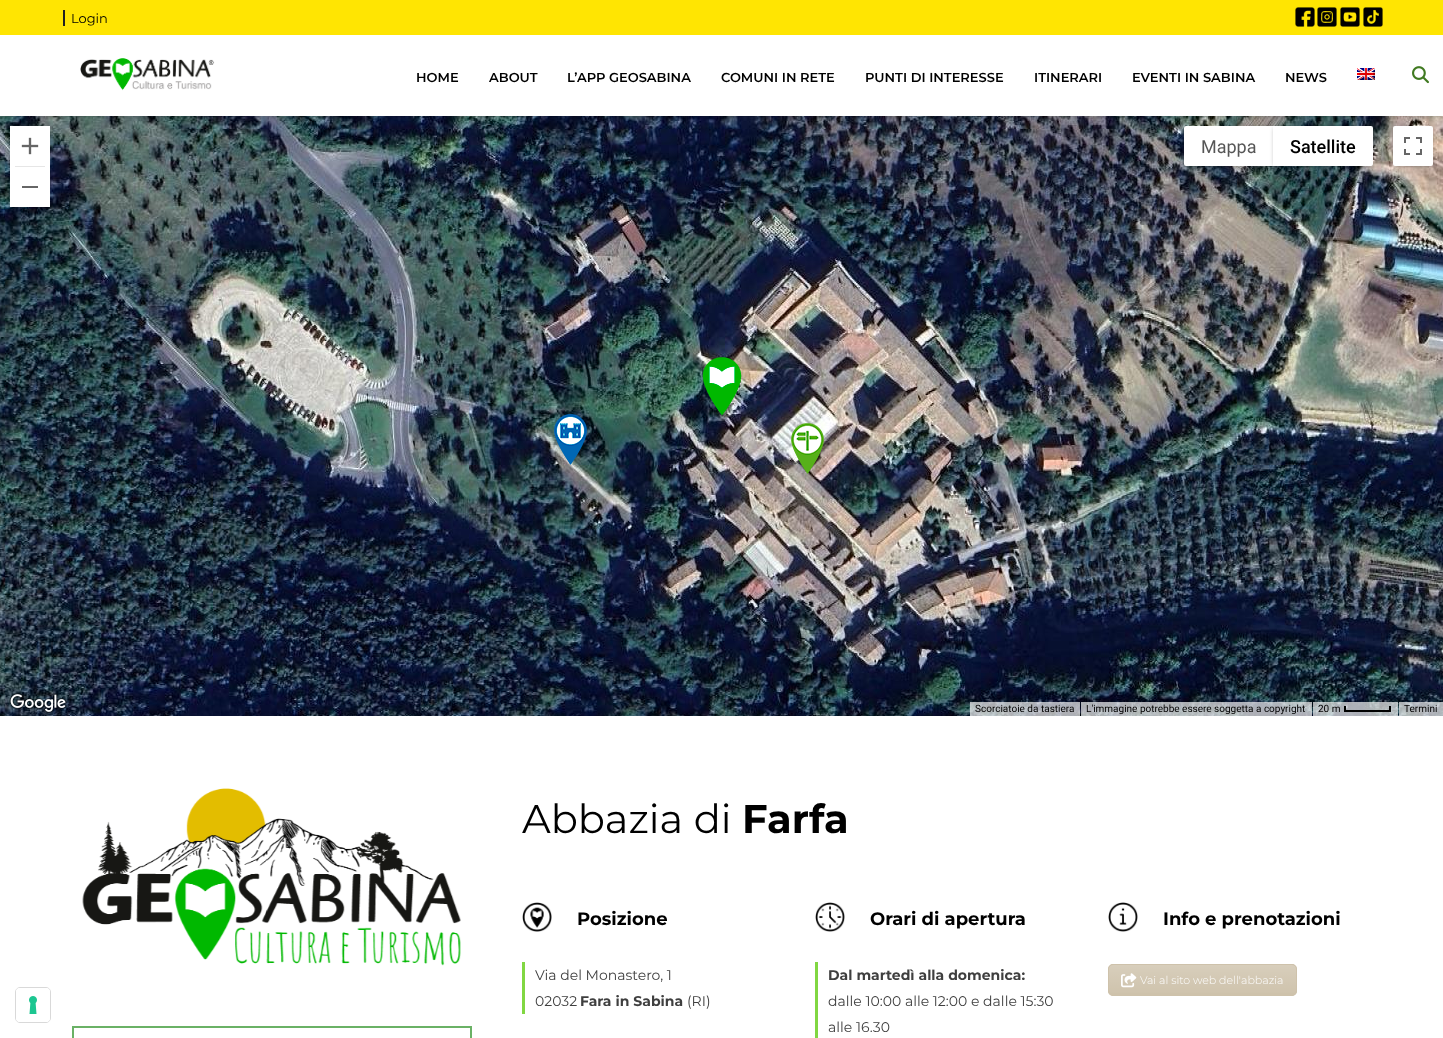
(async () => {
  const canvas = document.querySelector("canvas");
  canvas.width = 1443;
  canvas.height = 1038;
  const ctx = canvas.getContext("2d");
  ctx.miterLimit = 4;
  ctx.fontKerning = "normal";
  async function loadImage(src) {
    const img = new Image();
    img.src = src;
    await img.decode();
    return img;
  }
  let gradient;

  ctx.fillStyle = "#ffffff";
  ctx.fillRect(0, 0, 1443, 1038);
  ctx.beginPath();
  ctx.roundRect(15.5, 987.5, 35, 35, 4.5);
  ctx.strokeStyle = "#d9d9d9";
  ctx.stroke();
  ctx.beginPath();
  ctx.roundRect(16, 988, 34, 34, 4);
  ctx.fill();
  ctx.drawImage(await loadImage("img/1.png"), 29, 996, 8, 18);
  ctx.drawImage(await loadImage("img/9.png"), 0, 116, 213, 93);
  ctx.drawImage(await loadImage("img/10.png"), 213, 116, 256, 93);
  ctx.drawImage(await loadImage("img/11.png"), 469, 116, 256, 93);
  ctx.drawImage(await loadImage("img/12.png"), 725, 116, 256, 93);
  ctx.drawImage(await loadImage("img/13.png"), 981, 116, 256, 93);
  ctx.drawImage(await loadImage("img/14.png"), 1237, 116, 206, 93);
  ctx.save();
  ctx.beginPath();
  ctx.rect(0, 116, 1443, 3);
  ctx.clip();
  ctx.fillStyle = "rgba(0, 0, 0, 0.15)";
  ctx.filter = "blur(1.5px)";
  ctx.beginPath();
  ctx.rect(0, 37, 1443, 80);
  ctx.fill();
  ctx.filter = "none";
  ctx.restore();
  for (const [x, y, w, h, color] of [
    [0, 0, 1443, 35, "#ffe502"],
    [0, 35, 1443, 1, "#ffffff"],
    [63, 10, 2, 16, "#212121"],
  ]) {
    ctx.fillStyle = color;
    ctx.fillRect(x, y, w, h);
  }
  ctx.drawImage(await loadImage("img/2.png"), 1295, 7, 20, 20);
  ctx.drawImage(await loadImage("img/3.png"), 1317, 7, 20, 20);
  ctx.drawImage(await loadImage("img/4.png"), 1340, 7, 20, 20);
  ctx.drawImage(await loadImage("img/5.png"), 1363, 7, 20, 20);
  ctx.drawImage(await loadImage("img/6.png"), 80, 58, 135, 33);
  ctx.drawImage(await loadImage("img/7.png"), 1357, 68, 18, 12);
  ctx.drawImage(await loadImage("img/8.png"), 1412, 66, 17, 18);
  ctx.drawImage(await loadImage("img/15.png"), 0, 209, 213, 256);
  ctx.drawImage(await loadImage("img/16.png"), 213, 209, 256, 256);
  ctx.drawImage(await loadImage("img/17.png"), 469, 209, 256, 256);
  ctx.drawImage(await loadImage("img/18.png"), 725, 209, 256, 256);
  ctx.drawImage(await loadImage("img/19.png"), 981, 209, 256, 256);
  ctx.drawImage(await loadImage("img/20.png"), 1237, 209, 206, 256);
  ctx.drawImage(await loadImage("img/21.png"), 0, 465, 213, 251);
  ctx.drawImage(await loadImage("img/22.png"), 213, 465, 256, 251);
  ctx.drawImage(await loadImage("img/23.png"), 469, 465, 256, 251);
  ctx.drawImage(await loadImage("img/24.png"), 725, 465, 256, 251);
  ctx.drawImage(await loadImage("img/25.png"), 981, 465, 256, 251);
  ctx.drawImage(await loadImage("img/26.png"), 1237, 465, 206, 251);
  ctx.drawImage(await loadImage("img/28.png"), 707, 391, 15, 24);
  ctx.drawImage(await loadImage("img/27.png"), 702, 357, 40, 58);
  ctx.drawImage(await loadImage("img/29.png"), 554, 414, 33, 51);
  ctx.drawImage(await loadImage("img/30.png"), 791, 423, 33, 51);
  ctx.fillStyle = "rgba(0, 0, 0, 0.3)";
  ctx.filter = "blur(2px)";
  ctx.beginPath();
  ctx.roundRect(11, 128, 38, 79, 1);
  ctx.fill();
  ctx.filter = "none";
  ctx.fillStyle = "#ffffff";
  ctx.fillRect(10, 126, 40, 81);
  ctx.drawImage(await loadImage("img/31.png"), 21, 137, 18, 18);
  ctx.fillStyle = "#e6e6e6";
  ctx.fillRect(15, 166, 30, 1);
  ctx.fillStyle = "#666666";
  ctx.fillRect(22, 186, 16, 2);
  ctx.fillStyle = "rgba(0, 0, 0, 0.3)";
  ctx.filter = "blur(2px)";
  ctx.beginPath();
  ctx.roundRect(1185, 128, 87, 38, 1);
  ctx.fill();
  ctx.filter = "none";
  ctx.fillStyle = "#ffffff";
  ctx.beginPath();
  ctx.roundRect(1184, 126, 89, 40, [2, 0, 0, 2]);
  ctx.fill();
  ctx.fillStyle = "rgba(0, 0, 0, 0.3)";
  ctx.filter = "blur(2px)";
  ctx.beginPath();
  ctx.roundRect(1274, 128, 98, 38, 1);
  ctx.fill();
  ctx.filter = "none";
  ctx.fillStyle = "#ffffff";
  ctx.beginPath();
  ctx.roundRect(1273, 126, 100, 40, [0, 2, 2, 0]);
  ctx.fill();
  ctx.fillStyle = "rgba(0, 0, 0, 0.3)";
  ctx.filter = "blur(2px)";
  ctx.beginPath();
  ctx.roundRect(1394, 128, 38, 38, 1);
  ctx.fill();
  ctx.filter = "none";
  ctx.fillStyle = "#ffffff";
  ctx.beginPath();
  ctx.roundRect(1393, 126, 40, 40, 2);
  ctx.fill();
  ctx.drawImage(await loadImage("img/32.png"), 1404, 137, 18, 18);
  ctx.drawImage(await loadImage("img/33.png"), 9, 693, 58, 20);
  for (const [x, y, w, h, color] of [
    [970, 702, 110, 14, "rgba(245, 245, 245, 0.7)"],
    [1081, 702, 231, 14, "rgba(245, 245, 245, 0.7)"],
    [1313, 702, 85, 14, "rgba(245, 245, 245, 0.7)"],
    [1344, 710, 47, 2, "#000000"],
    [1344, 706, 2, 6, "#000000"],
    [1389, 706, 2, 6, "#000000"],
    [1399, 702, 44, 14, "rgba(245, 245, 245, 0.7)"],
  ]) {
    ctx.fillStyle = color;
    ctx.fillRect(x, y, w, h);
  }
  ctx.drawImage(await loadImage("img/34.png"), 82, 788, 379, 178);
  ctx.strokeStyle = "#6ab165";
  ctx.lineWidth = 2;
  ctx.strokeRect(73, 1027, 398, 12);
  ctx.drawImage(await loadImage("img/35.png"), 522, 902, 30, 30);
  ctx.fillStyle = "#81d742";
  ctx.fillRect(522, 962, 3, 52);
  ctx.drawImage(await loadImage("img/36.png"), 815, 902, 30, 30);
  ctx.fillRect(815, 962, 3, 76);
  ctx.drawImage(await loadImage("img/37.png"), 1108, 902, 30, 30);
  ctx.fillStyle = "#cec2ab";
  ctx.beginPath();
  ctx.roundRect(1108, 964, 189, 32, 5);
  ctx.fill();
  ctx.save();
  ctx.beginPath();
  ctx.roundRect(1108, 964, 189, 32, 5);
  ctx.clip();
  gradient = ctx.createLinearGradient(1203, 965, 1203, 995);
  gradient.addColorStop(0, "rgba(255, 255, 255, 0.2)");
  gradient.addColorStop(1, "rgba(255, 255, 255, 0.01)");
  ctx.fillStyle = gradient;
  ctx.fillRect(1108, 965, 189, 28);
  ctx.restore();
  ctx.beginPath();
  ctx.roundRect(1108.5, 964.5, 188, 31, 4.5);
  ctx.strokeStyle = "#cec2ab";
  ctx.lineWidth = 1;
  ctx.stroke();
  ctx.drawImage(await loadImage("img/38.png"), 1121, 973, 16, 15);
  ctx.font = "13px Montserrat";
  ctx.fillStyle = "#000000";
  ctx.fillText("Login", 71, 23);
  ctx.font = "600 13px Montserrat";
  for (const [text, x, y] of [
    ["HOME", 416, 82],
    ["ABOUT", 489, 82],
    ["L’APP GEOSABINA", 567, 82],
    ["COMUNI IN RETE", 721, 82],
    ["PUNTI DI INTERESSE", 865, 82],
    ["ITINERARI", 1034, 82],
    ["EVENTI IN SABINA", 1132, 82],
    ["NEWS", 1285, 82],
  ]) {
    ctx.fillText(text, x, y);
  }
  ctx.font = "18px Roboto";
  ctx.fillStyle = "#565656";
  ctx.fillText("Mappa", 1201, 153);
  ctx.font = "500 18px Roboto";
  ctx.fillStyle = "#000000";
  ctx.fillText("Satellite", 1290, 153);
  ctx.font = "10px Roboto";
  for (const [text, x, y] of [
    ["Scorciatoie da tastiera", 975, 712],
    ["L'immagine potrebbe essere soggetta a copyright", 1086, 712],
    ["20 m", 1318, 712],
    ["Termini", 1404, 712],
  ]) {
    ctx.fillText(text, x, y);
  }
  ctx.font = "40px Montserrat";
  ctx.fillText("Abbazia di", 522, 833);
  ctx.font = "bold 40px Montserrat";
  ctx.fillText("Farfa", 742, 833);
  ctx.font = "bold 18px Montserrat";
  ctx.fillText("Posizione", 577, 925);
  ctx.font = "14px Montserrat";
  ctx.fillStyle = "#3f3f3f";
  ctx.fillText("Via del Monastero, 1", 535, 980);
  ctx.fillText("02032", 535, 1006);
  ctx.font = "bold 14px Montserrat";
  ctx.fillText("Fara in Sabina", 580, 1006);
  ctx.font = "14px Montserrat";
  ctx.fillText("(RI)", 687, 1006);
  ctx.font = "bold 18px Montserrat";
  ctx.fillStyle = "#000000";
  ctx.fillText("Orari di apertura", 870, 925);
  ctx.font = "bold 14px Montserrat";
  ctx.fillStyle = "#3f3f3f";
  ctx.fillText("Dal martedì alla domenica:", 828, 980);
  ctx.font = "14px Montserrat";
  ctx.fillText("dalle 10:00 alle 12:00 e dalle 15:30", 828, 1006);
  ctx.fillText("alle 16.30", 828, 1032);
  ctx.font = "bold 18px Montserrat";
  ctx.fillStyle = "#000000";
  ctx.fillText("Info e prenotazioni", 1163, 925);
  ctx.font = "300 11px Montserrat";
  ctx.fillStyle = "#ffffff";
  ctx.fillText("Vai al sito web dell'abbazia", 1140, 984);
})();
